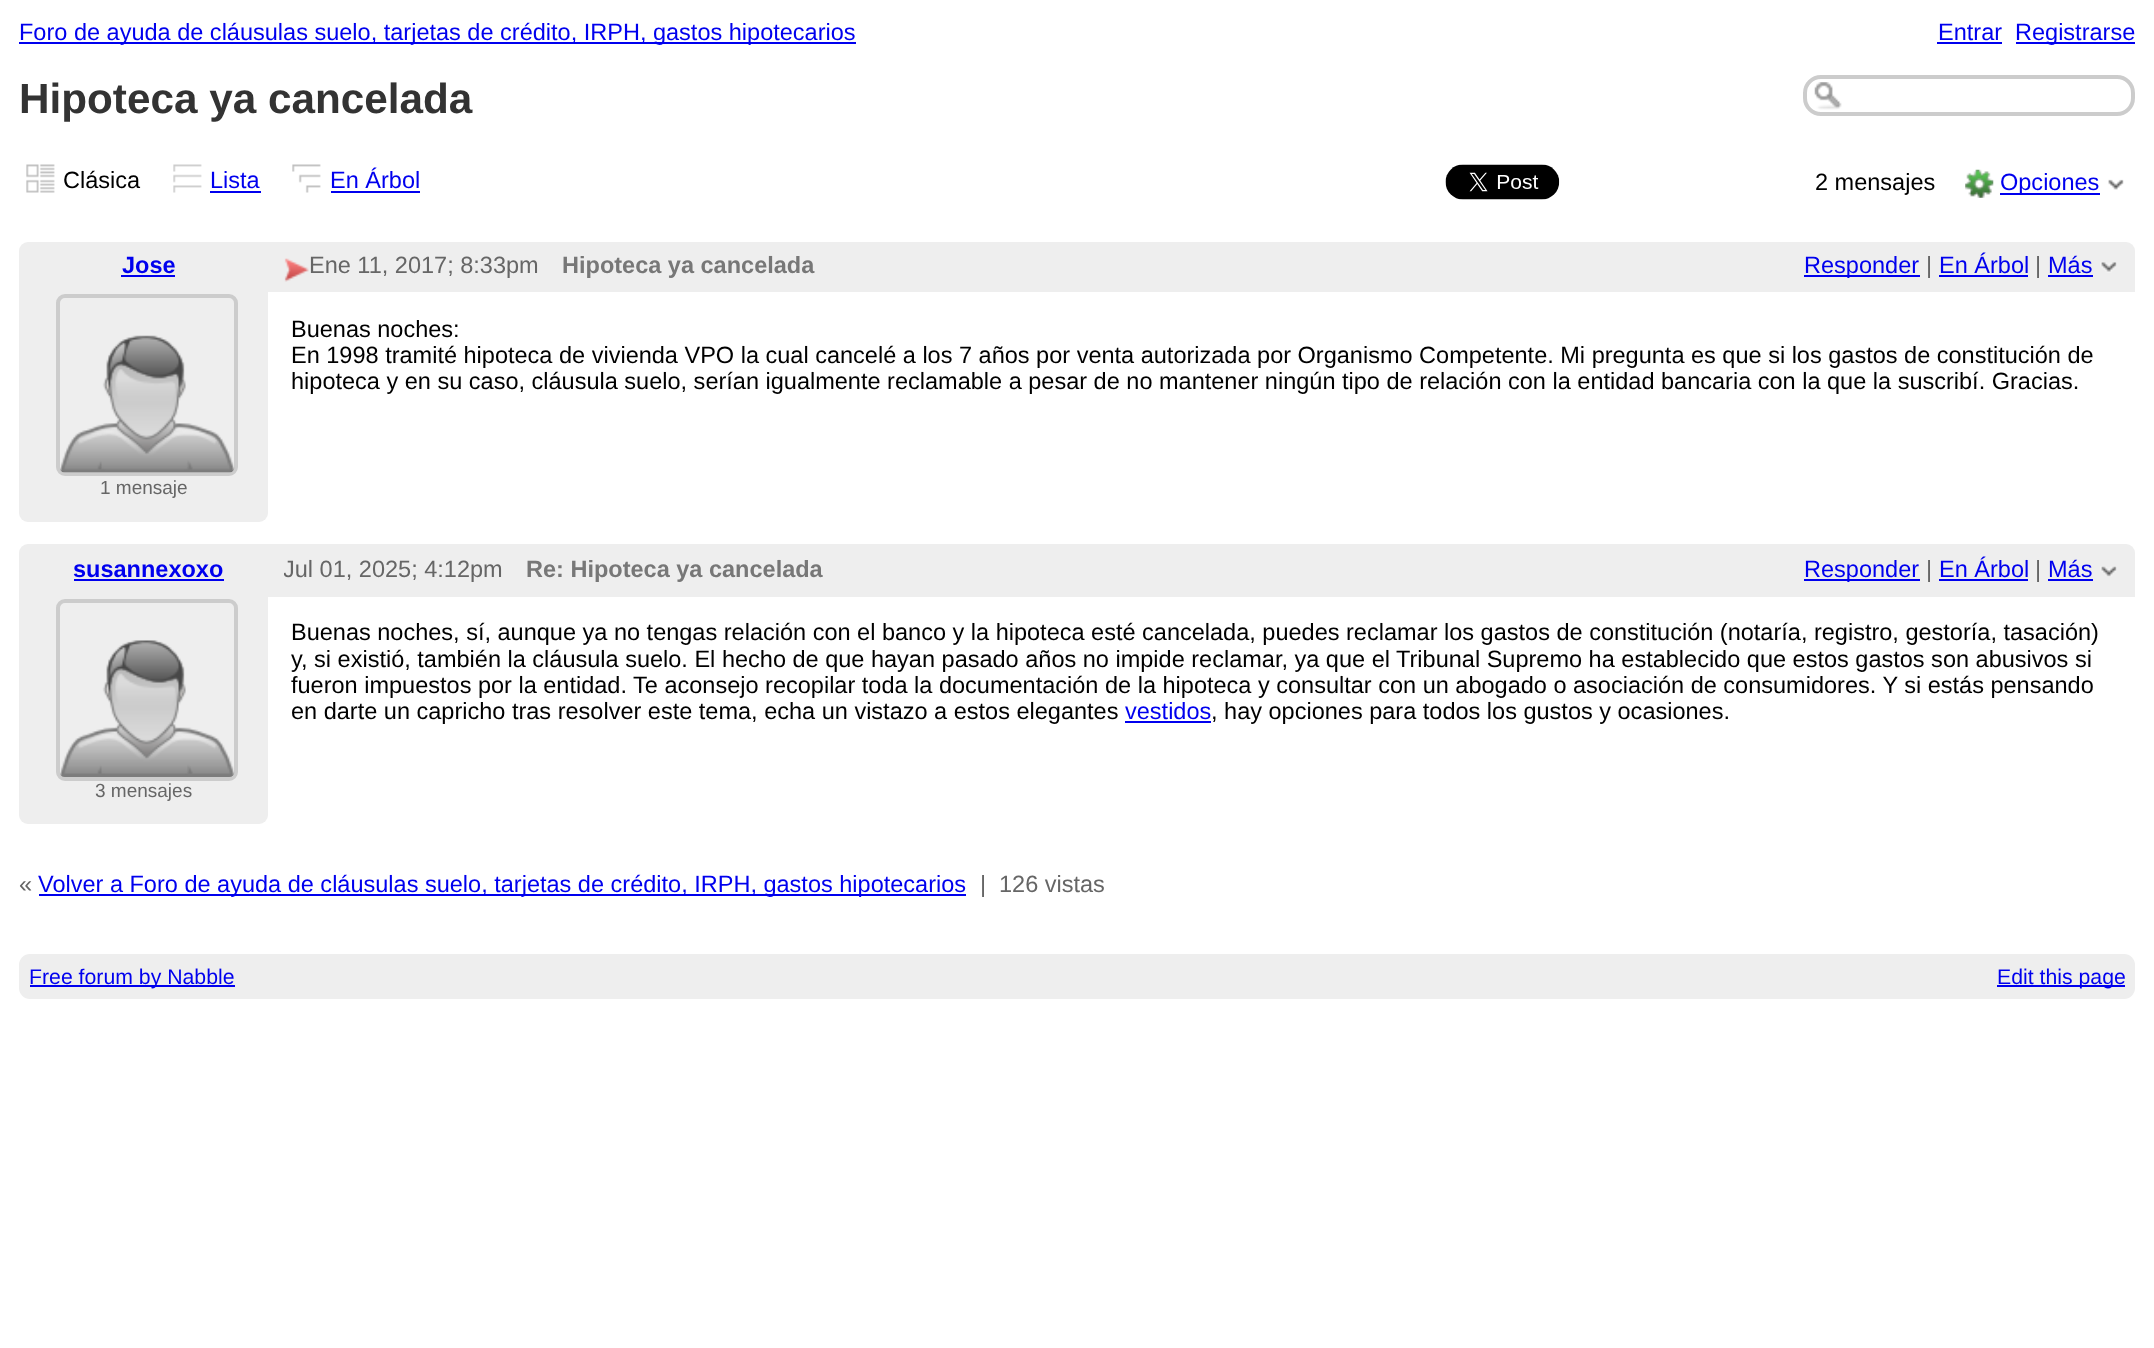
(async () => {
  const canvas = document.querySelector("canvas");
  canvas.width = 2154;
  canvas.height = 1348;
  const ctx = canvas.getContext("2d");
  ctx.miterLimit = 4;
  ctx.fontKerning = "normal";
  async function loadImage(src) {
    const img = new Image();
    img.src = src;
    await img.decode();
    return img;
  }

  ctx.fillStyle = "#ffffff";
  ctx.fillRect(0, 0, 2154, 1348);
  for (const [x, y, w, h, color] of [
    [19, 42, 837, 2, "#0000ee"],
    [1937, 42, 65, 2, "#0000ee"],
    [2016, 42, 119, 2, "#0000ee"],
  ]) {
    ctx.fillStyle = color;
    ctx.fillRect(x, y, w, h);
  }
  ctx.drawImage(await loadImage("img/1.png"), 1814, 82, 28, 28);
  ctx.beginPath();
  ctx.roundRect(1805, 77, 328, 37, 16);
  ctx.strokeStyle = "#cccccc";
  ctx.lineWidth = 4;
  ctx.stroke();
  ctx.drawImage(await loadImage("img/2.png"), 26, 164, 29, 29);
  ctx.drawImage(await loadImage("img/3.png"), 173, 164, 29, 29);
  ctx.fillRect(210, 191, 51, 2);
  ctx.drawImage(await loadImage("img/4.png"), 292, 164, 29, 29);
  ctx.fillRect(331, 191, 89, 2);
  ctx.drawImage(await loadImage("img/5.png"), 1445, 164, 115, 36);
  ctx.drawImage(await loadImage("img/6.png"), 1965, 169, 29, 29);
  ctx.fillRect(2000, 193, 100, 2);
  ctx.drawImage(await loadImage("img/7.png"), 2108, 179, 16, 11);
  ctx.fillStyle = "#eeeeee";
  ctx.beginPath();
  ctx.roundRect(19, 242, 2116, 50, [9, 9, 0, 0]);
  ctx.fill();
  ctx.fillStyle = "#0000ee";
  ctx.fillRect(121, 275, 54, 2);
  ctx.drawImage(await loadImage("img/8.png"), 284, 258, 25, 24);
  for (const [x, y, w, h, color] of [
    [1804, 275, 116, 2, "#0000ee"],
    [1939, 275, 89, 2, "#0000ee"],
    [2048, 275, 45, 2, "#0000ee"],
  ]) {
    ctx.fillStyle = color;
    ctx.fillRect(x, y, w, h);
  }
  ctx.drawImage(await loadImage("img/9.png"), 2100, 262, 17, 11);
  ctx.fillStyle = "#eeeeee";
  ctx.beginPath();
  ctx.roundRect(19, 292, 249, 230, [0, 0, 9, 9]);
  ctx.fill();
  ctx.beginPath();
  ctx.roundRect(58, 296, 178, 178, 7);
  ctx.stroke();
  ctx.drawImage(await loadImage("img/10.png"), 60, 335, 175, 138);
  ctx.beginPath();
  ctx.roundRect(19, 544, 2116, 53, [9, 9, 0, 0]);
  ctx.fill();
  for (const [x, y, w, h, color] of [
    [74, 579, 150, 2, "#0000ee"],
    [1804, 579, 116, 2, "#0000ee"],
    [1939, 579, 89, 2, "#0000ee"],
    [2048, 579, 45, 2, "#0000ee"],
  ]) {
    ctx.fillStyle = color;
    ctx.fillRect(x, y, w, h);
  }
  ctx.drawImage(await loadImage("img/11.png"), 2100, 566, 17, 11);
  ctx.fillRect(1125, 721, 86, 2);
  ctx.fillStyle = "#eeeeee";
  ctx.beginPath();
  ctx.roundRect(19, 597, 249, 227, [0, 0, 9, 9]);
  ctx.fill();
  ctx.beginPath();
  ctx.roundRect(58, 601, 178, 178, 7);
  ctx.stroke();
  ctx.drawImage(await loadImage("img/12.png"), 60, 640, 175, 137);
  ctx.fillStyle = "#0000ee";
  ctx.fillRect(39, 894, 927, 2);
  ctx.fillStyle = "#eeeeee";
  ctx.beginPath();
  ctx.roundRect(19, 954, 2116, 45, 11);
  ctx.fill();
  ctx.fillStyle = "#0000ee";
  ctx.fillRect(30, 985, 205, 2);
  ctx.fillRect(1997, 985, 128, 2);
  ctx.font = "23.52px Liberation Sans";
  for (const [text, x, y] of [
    ["Foro de ayuda de cláusulas suelo, tarjetas de crédito, IRPH, gastos hipotecarios", 19, 40],
    ["Entrar", 1938, 40],
    ["Registrarse", 2015, 40],
  ]) {
    ctx.fillText(text, x, y);
  }
  ctx.font = "bold 42.25px Liberation Sans";
  ctx.fillStyle = "#333333";
  ctx.fillText("Hipoteca ya cancelada", 19, 113);
  ctx.font = "23.52px Liberation Sans";
  ctx.fillStyle = "#000000";
  ctx.fillText("Clásica", 63, 188);
  ctx.fillStyle = "#0000ee";
  ctx.fillText("Lista", 210, 188);
  ctx.fillText("En Árbol", 330, 188);
  ctx.fillStyle = "#000000";
  ctx.fillText("2 mensajes", 1815, 190);
  ctx.fillStyle = "#0000ee";
  ctx.fillText("Opciones", 2000, 190);
  ctx.font = "bold 23.52px Liberation Sans";
  ctx.fillText("Jose", 122, 273);
  ctx.font = "23.52px Liberation Sans";
  ctx.fillStyle = "#666666";
  ctx.fillText("Ene 11, 2017; 8:33pm", 309, 273);
  ctx.font = "bold 23.52px Liberation Sans";
  ctx.fillStyle = "#777777";
  ctx.fillText("Hipoteca ya cancelada", 562, 273);
  ctx.font = "23.52px Liberation Sans";
  ctx.fillStyle = "#0000ee";
  ctx.fillText("Responder", 1804, 273);
  ctx.fillStyle = "#666666";
  ctx.fillText("|", 1926, 273);
  ctx.fillStyle = "#0000ee";
  ctx.fillText("En Árbol", 1939, 273);
  ctx.fillStyle = "#666666";
  ctx.fillText("|", 2035, 273);
  ctx.fillStyle = "#0000ee";
  ctx.fillText("Más", 2048, 273);
  ctx.fillStyle = "#000000";
  for (const [text, x, y] of [
    ["Buenas noches:", 291, 337],
    ["En 1998 tramité hipoteca de vivienda VPO la cual cancelé a los 7 años por venta autorizada por Organismo Competente. Mi pregunta es que si los gastos de constitución de", 291, 363],
    ["hipoteca y en su caso, cláusula suelo, serían igualmente reclamable a pesar de no mantener ningún tipo de relación con la entidad bancaria con la que la suscribí. Gracias.", 291, 389],
  ]) {
    ctx.fillText(text, x, y);
  }
  ctx.font = "19px Liberation Sans";
  ctx.fillStyle = "#666666";
  ctx.fillText("1 mensaje", 100, 494);
  ctx.font = "bold 23.52px Liberation Sans";
  ctx.fillStyle = "#0000ee";
  ctx.fillText("susannexoxo", 73, 577);
  ctx.save();
  ctx.beginPath();
  ctx.rect(284, 557, 1508, 29);
  ctx.clip();
  ctx.font = "23.52px Liberation Sans";
  ctx.fillStyle = "#666666";
  ctx.fillText("Jul 01, 2025; 4:12pm", 283, 577);
  ctx.restore();
  ctx.fillStyle = "#777777";
  ctx.fillText("Re: Hipoteca ya cancelada", 526, 577);
  ctx.font = "23.52px Liberation Sans";
  ctx.fillStyle = "#0000ee";
  ctx.fillText("Responder", 1804, 577);
  ctx.fillStyle = "#666666";
  ctx.fillText("|", 1926, 577);
  ctx.fillStyle = "#0000ee";
  ctx.fillText("En Árbol", 1939, 577);
  ctx.fillStyle = "#666666";
  ctx.fillText("|", 2035, 577);
  ctx.fillStyle = "#0000ee";
  ctx.fillText("Más", 2048, 577);
  ctx.fillStyle = "#000000";
  for (const [text, x, y] of [
    ["Buenas noches, sí, aunque ya no tengas relación con el banco y la hipoteca esté cancelada, puedes reclamar los gastos de constitución (notaría, registro, gestoría, tasación)", 291, 640],
    ["y, si existió, también la cláusula suelo. El hecho de que hayan pasado años no impide reclamar, ya que el Tribunal Supremo ha establecido que estos gastos son abusivos si", 291, 667],
    ["fueron impuestos por la entidad. Te aconsejo recopilar toda la documentación de la hipoteca y consultar con un abogado o asociación de consumidores. Y si estás pensando", 291, 693],
    ["en darte un capricho tras resolver este tema, echa un vistazo a estos elegantes", 291, 719],
  ]) {
    ctx.fillText(text, x, y);
  }
  ctx.fillStyle = "#0000ee";
  ctx.fillText("vestidos", 1125, 719);
  ctx.fillStyle = "#000000";
  ctx.fillText(", hay opciones para todos los gustos y ocasiones.", 1211, 719);
  ctx.font = "19px Liberation Sans";
  ctx.fillStyle = "#666666";
  ctx.fillText("3 mensajes", 95, 797);
  ctx.font = "23.52px Liberation Sans";
  ctx.fillText("«", 19, 892);
  ctx.fillStyle = "#0000ee";
  ctx.fillText("Volver a Foro de ayuda de cláusulas suelo, tarjetas de crédito, IRPH, gastos hipotecarios", 38, 892);
  ctx.fillStyle = "#666666";
  ctx.fillText("|", 980, 892);
  ctx.fillText("126 vistas", 999, 892);
  ctx.font = "21.25px Liberation Sans";
  ctx.fillStyle = "#0000ee";
  ctx.fillText("Free forum by Nabble", 29, 984);
  ctx.fillText("Edit this page", 1997, 984);
})();
